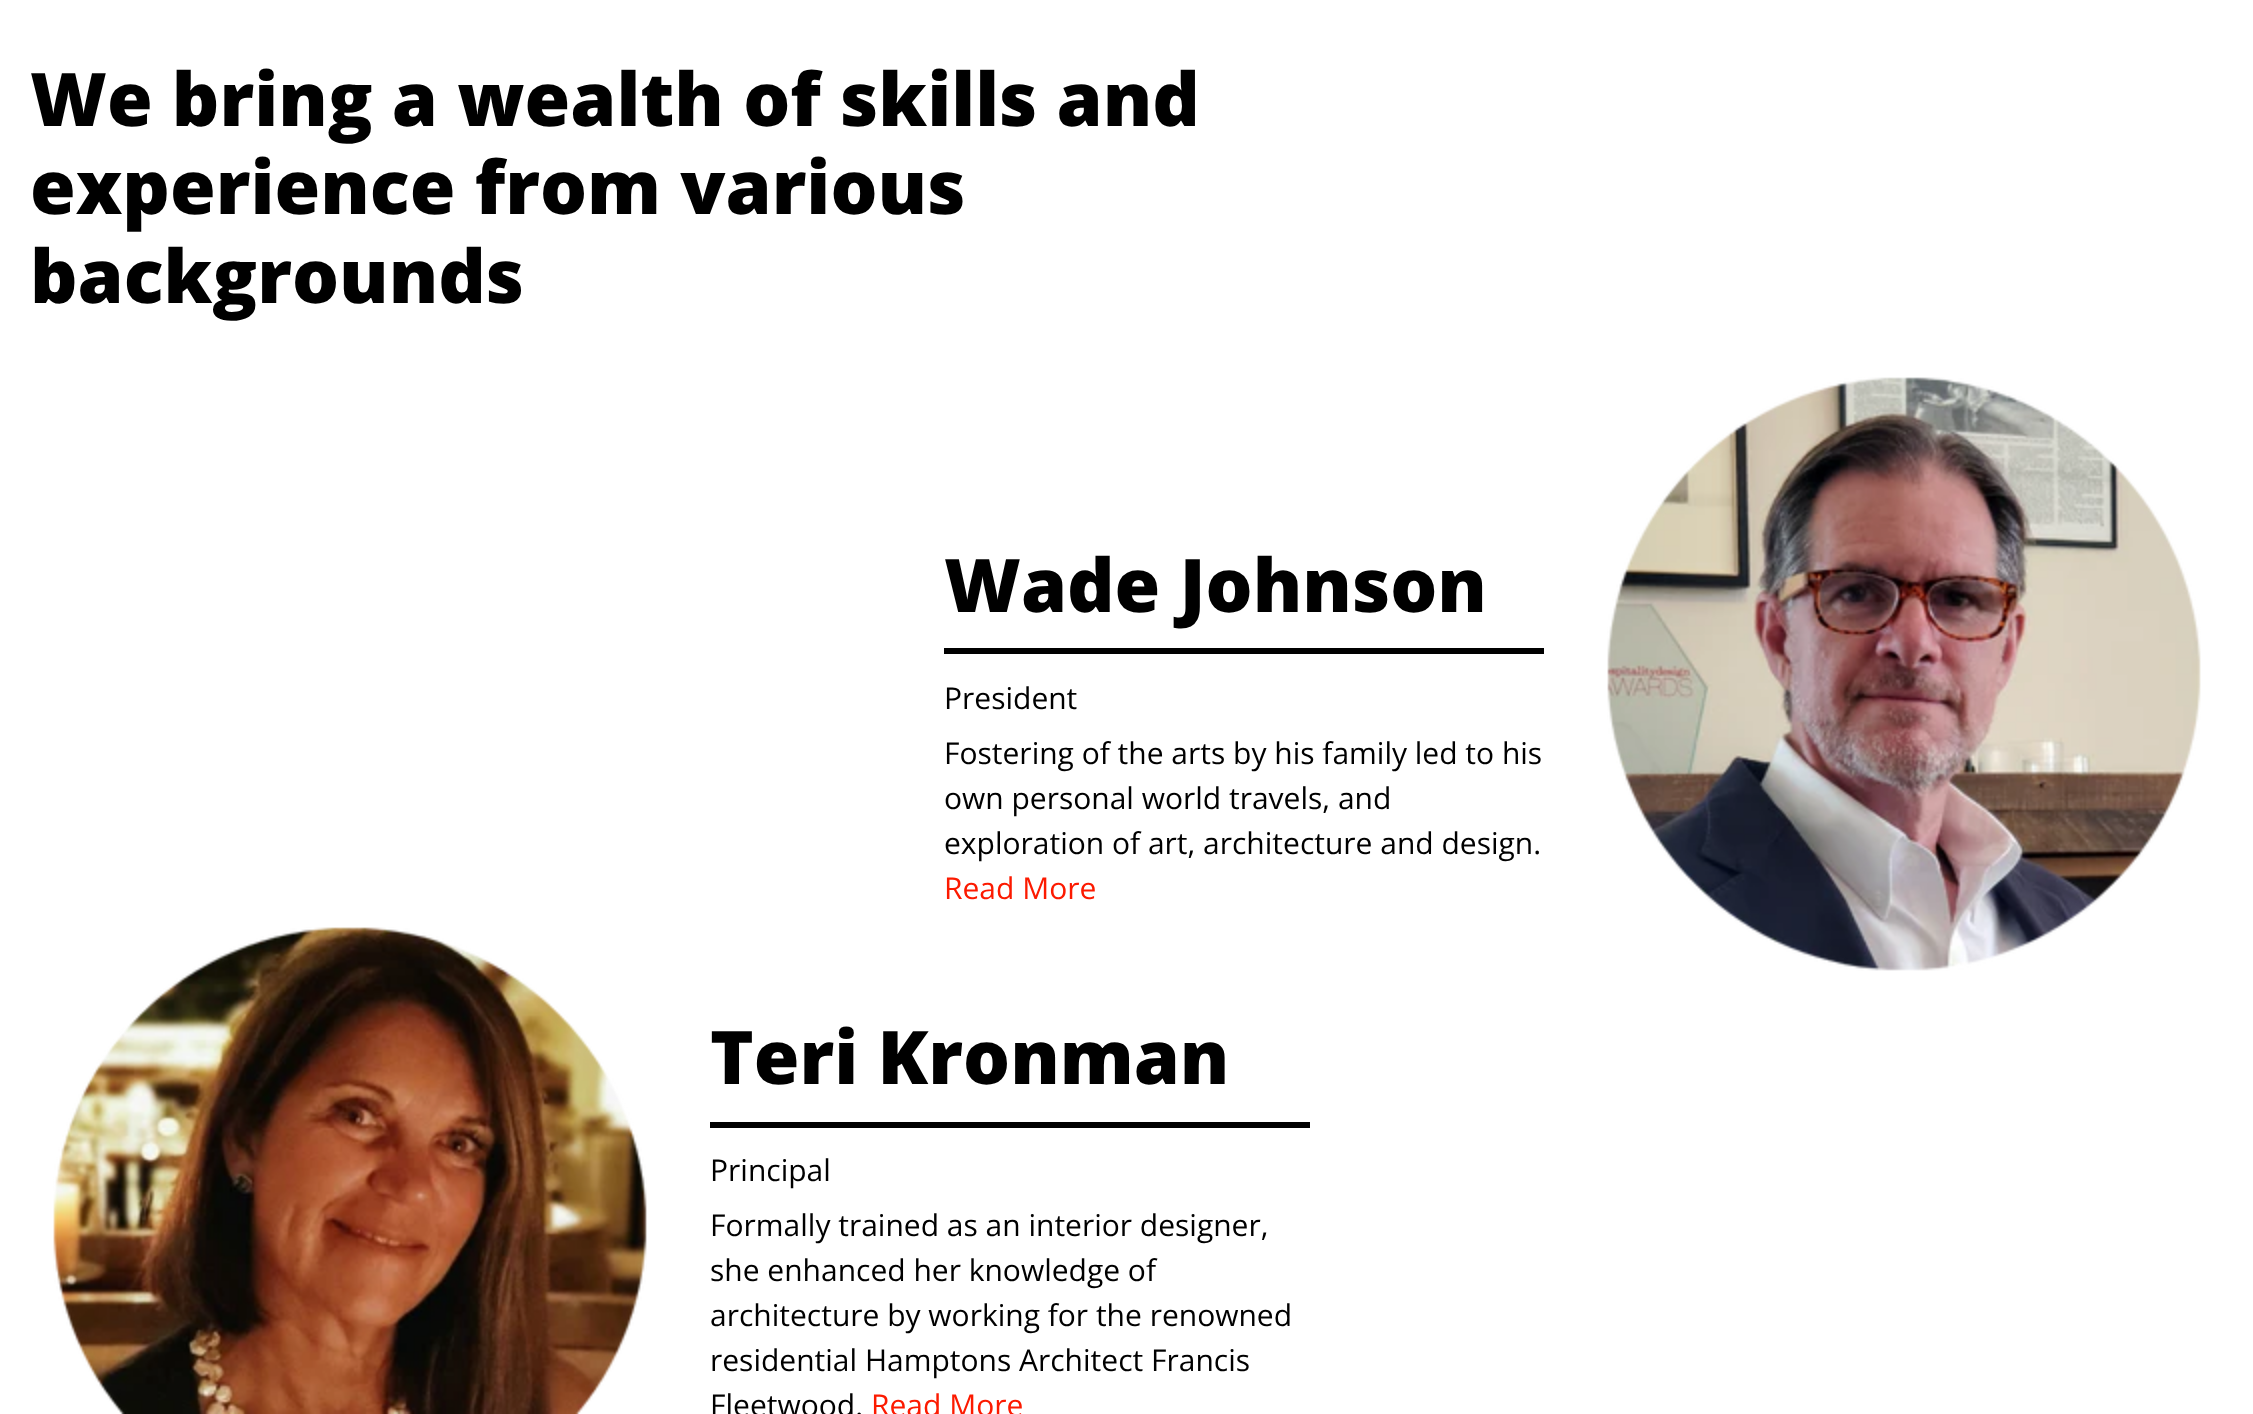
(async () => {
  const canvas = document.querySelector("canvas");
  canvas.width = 2253;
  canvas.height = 1414;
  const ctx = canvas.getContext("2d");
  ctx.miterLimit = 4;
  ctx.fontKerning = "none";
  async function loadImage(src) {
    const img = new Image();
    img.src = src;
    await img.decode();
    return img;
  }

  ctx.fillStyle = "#ffffff";
  ctx.fillRect(0, 0, 2253, 1414);
  ctx.fillStyle = "#000000";
  ctx.fillRect(944, 648, 600, 6);
  ctx.drawImage(await loadImage("img/1.png"), 1607, 377, 594, 594);
  ctx.drawImage(await loadImage("img/2.png"), 53, 927, 594, 487);
  ctx.fillRect(710, 1122, 600, 6);
  ctx.font = "800 74px Open Sans";
  for (const [text, x, y] of [
    ["We bring a wealth of skills and", 30, 126],
    ["experience from various", 30, 214],
    ["backgrounds", 30, 303],
    ["Wade Johnson", 944, 612],
  ]) {
    ctx.fillText(text, x, y);
  }
  ctx.font = "30px Open Sans";
  for (const [text, x, y] of [
    ["President", 944, 709],
    ["Fostering of the arts by his family led to his", 944, 764],
    ["own personal world travels, and", 944, 809],
    ["exploration of art, architecture and design.", 944, 854],
  ]) {
    ctx.fillText(text, x, y);
  }
  ctx.fillStyle = "#fc1a00";
  ctx.fillText("Read More", 944, 899);
  ctx.font = "800 74px Open Sans";
  ctx.fillStyle = "#000000";
  ctx.fillText("Teri Kronman", 710, 1084);
  ctx.font = "30px Open Sans";
  for (const [text, x, y] of [
    ["Principal", 710, 1181],
    ["Formally trained as an interior designer,", 710, 1236],
    ["she enhanced her knowledge of", 710, 1281],
    ["architecture by working for the renowned", 710, 1326],
    ["residential Hamptons Architect Francis", 710, 1371],
    ["Fleetwood.", 710, 1416],
  ]) {
    ctx.fillText(text, x, y);
  }
  ctx.fillStyle = "#fc1a00";
  ctx.fillText("Read More", 871, 1416);
})();
